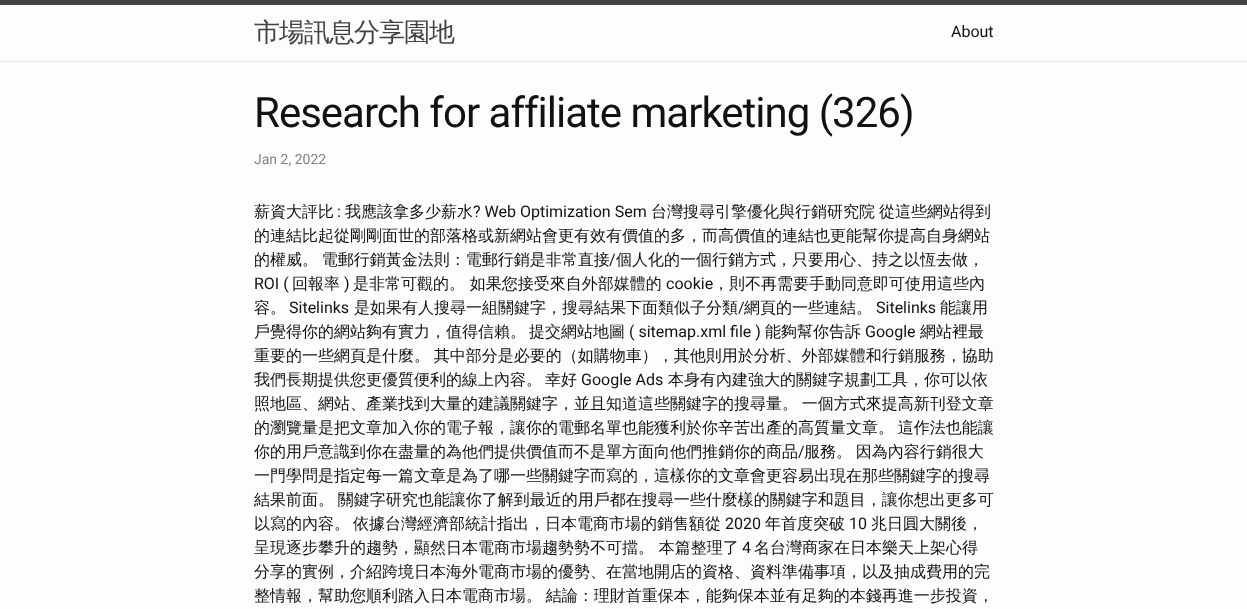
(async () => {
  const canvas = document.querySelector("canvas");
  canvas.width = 1247;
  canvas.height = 609;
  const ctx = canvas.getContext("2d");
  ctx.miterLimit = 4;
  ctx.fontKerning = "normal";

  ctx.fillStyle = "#fdfdfd";
  ctx.fillRect(0, 0, 1247, 609);
  ctx.fillStyle = "#424242";
  ctx.fillRect(0, 0, 1247, 5);
  ctx.fillStyle = "#e8e8e8";
  ctx.fillRect(0, 61, 1247, 1);
  ctx.letterSpacing = "-1px";
  ctx.font = "500 26px WenQuanYi Zen Hei";
  ctx.fillStyle = "#424242";
  ctx.fillText("市場訊息分享園地", 254, 41);
  ctx.letterSpacing = "0px";
  ctx.font = "16px Roboto";
  ctx.fillStyle = "#111111";
  ctx.fillText("About", 951, 37);
  ctx.letterSpacing = "-1px";
  ctx.font = "42px Roboto";
  ctx.fillText("Research for affiliate marketing (326)", 254, 127);
  ctx.letterSpacing = "0px";
  ctx.font = "14px Roboto";
  ctx.fillStyle = "#828282";
  ctx.fillText("Jan 2, 2022", 254, 164);
  ctx.font = "500 16px WenQuanYi Zen Hei";
  ctx.fillStyle = "#111111";
  ctx.fillText("薪資大評比", 254, 217);
  ctx.font = "16px Roboto";
  ctx.fillText(":", 337, 217);
  ctx.font = "500 16px WenQuanYi Zen Hei";
  ctx.fillText("我應該拿多少薪水", 345, 217);
  ctx.font = "16px Roboto";
  ctx.fillText("? Web Optimization Sem", 473, 217);
  ctx.font = "500 16px WenQuanYi Zen Hei";
  for (const [text, x, y] of [
    ["台灣搜尋引擎優化與行銷研究院", 651, 217],
    ["從這些網站得到", 879, 217],
    ["的連結比起從剛剛面世的部落格或新網站會更有效有價值的多，而高價值的連結也更能幫你提高自身網站", 254, 241],
  ]) {
    ctx.fillText(text, x, y);
  }
  ctx.wordSpacing = "-1px";
  ctx.fillText("的權威。 電郵行銷黃金法則：電郵行銷是非常直接", 254, 265);
  ctx.wordSpacing = "0px";
  ctx.font = "16px Roboto";
  ctx.fillText("/", 609, 265);
  ctx.font = "500 16px WenQuanYi Zen Hei";
  ctx.fillText("個人化的一個行銷方式，只要用心、持之以恆去做，", 616, 265);
  ctx.font = "16px Roboto";
  ctx.fillText("ROI (", 254, 289);
  ctx.font = "500 16px WenQuanYi Zen Hei";
  ctx.fillText("回報率", 292, 289);
  ctx.font = "16px Roboto";
  ctx.fillText(")", 344, 289);
  ctx.font = "500 16px WenQuanYi Zen Hei";
  ctx.fillText("是非常可觀的。 如果您接受來自外部媒體的", 353, 289);
  ctx.font = "16px Roboto";
  ctx.fillText("cookie", 666, 289);
  ctx.font = "500 16px WenQuanYi Zen Hei";
  ctx.fillText("，則不再需要手動同意即可使用這些內", 713, 289);
  ctx.fillText("容。", 254, 313);
  ctx.font = "16px Roboto";
  ctx.fillText("Sitelinks", 289, 313);
  ctx.font = "500 16px WenQuanYi Zen Hei";
  ctx.fillText("是如果有人搜尋一組關鍵字，搜尋結果下面類似子分類", 354, 313);
  ctx.font = "16px Roboto";
  ctx.fillText("/", 738, 313);
  ctx.font = "500 16px WenQuanYi Zen Hei";
  ctx.fillText("網頁的一些連結。", 744, 313);
  ctx.font = "16px Roboto";
  ctx.fillText("Sitelinks", 876, 313);
  ctx.font = "500 16px WenQuanYi Zen Hei";
  for (const [text, x, y] of [
    ["能讓用", 940, 313],
    ["戶覺得你的網站夠有實力，值得信賴。", 254, 337],
    ["提交網站地圖", 529, 337],
  ]) {
    ctx.fillText(text, x, y);
  }
  ctx.font = "16px Roboto";
  ctx.fillText("( sitemap.xml file )", 629, 337);
  ctx.font = "500 16px WenQuanYi Zen Hei";
  ctx.fillText("能夠幫你告訴", 765, 337);
  ctx.font = "16px Roboto";
  ctx.fillText("Google", 865, 337);
  ctx.font = "500 16px WenQuanYi Zen Hei";
  ctx.fillText("網站裡最", 920, 337);
  ctx.wordSpacing = "-1px";
  ctx.fillText("重要的一些網頁是什麼。 其中部分是必要的（如購物車），其他則用於分析、外部媒體和行銷服務，協助", 254, 361);
  ctx.wordSpacing = "0px";
  ctx.fillText("我們長期提供您更優質便利的線上內容。", 254, 385);
  ctx.fillText("幸好", 545, 385);
  ctx.font = "16px Roboto";
  ctx.fillText("Google Ads", 581, 385);
  ctx.font = "500 16px WenQuanYi Zen Hei";
  ctx.fillText("本身有內建強大的關鍵字規劃工具，你可以依", 668, 385);
  ctx.wordSpacing = "-1px";
  ctx.fillText("照地區、網站、產業找到大量的建議關鍵字，並且知道這些關鍵字的搜尋量。 一個方式來提高新刊登文章", 254, 409);
  ctx.fillText("的瀏覽量是把文章加入你的電子報，讓你的電郵名單也能獲利於你辛苦出產的高質量文章。 這作法也能讓", 254, 433);
  ctx.wordSpacing = "0px";
  ctx.fillText("你的用戶意識到你在盡量的為他們提供價值而不是單方面向他們推銷你的商品", 254, 457);
  ctx.font = "16px Roboto";
  ctx.fillText("/", 798, 457);
  ctx.wordSpacing = "-1px";
  ctx.font = "500 16px WenQuanYi Zen Hei";
  ctx.fillText("服務。 因為內容行銷很大", 804, 457);
  ctx.wordSpacing = "0px";
  ctx.fillText("一門學問是指定每一篇文章是為了哪一些關鍵字而寫的，這樣你的文章會更容易出現在那些關鍵字的搜尋", 254, 481);
  ctx.wordSpacing = "-1px";
  ctx.fillText("結果前面。 關鍵字研究也能讓你了解到最近的用戶都在搜尋一些什麼樣的關鍵字和題目，讓你想出更多可", 254, 505);
  ctx.wordSpacing = "0px";
  ctx.fillText("以寫的內容。", 254, 529);
  ctx.fillText("依據台灣經濟部統計指出，日本電商市場的銷售額從", 353, 529);
  ctx.font = "16px Roboto";
  ctx.fillText("2020", 725, 529);
  ctx.font = "500 16px WenQuanYi Zen Hei";
  ctx.fillText("年首度突破", 765, 529);
  ctx.font = "16px Roboto";
  ctx.fillText("10", 849, 529);
  ctx.font = "500 16px WenQuanYi Zen Hei";
  ctx.fillText("兆日圓大關後，", 871, 529);
  ctx.fillText("呈現逐步攀升的趨勢，顯然日本電商市場趨勢勢不可擋。 本篇整理了", 254, 553);
  ctx.font = "16px Roboto";
  ctx.fillText("4", 742, 553);
  ctx.font = "500 16px WenQuanYi Zen Hei";
  ctx.fillText("名台灣商家在日本樂天上架心得", 754, 553);
  ctx.fillText("分享的實例，介紹跨境日本海外電商市場的優勢、在當地開店的資格、資料準備事項，以及抽成費用的完", 254, 577);
  ctx.wordSpacing = "-1px";
  ctx.fillText("整情報，幫助您順利踏入日本電商市場。 結論：理財首重保本，能夠保本並有足夠的本錢再進一步投資，", 254, 601);
})();
